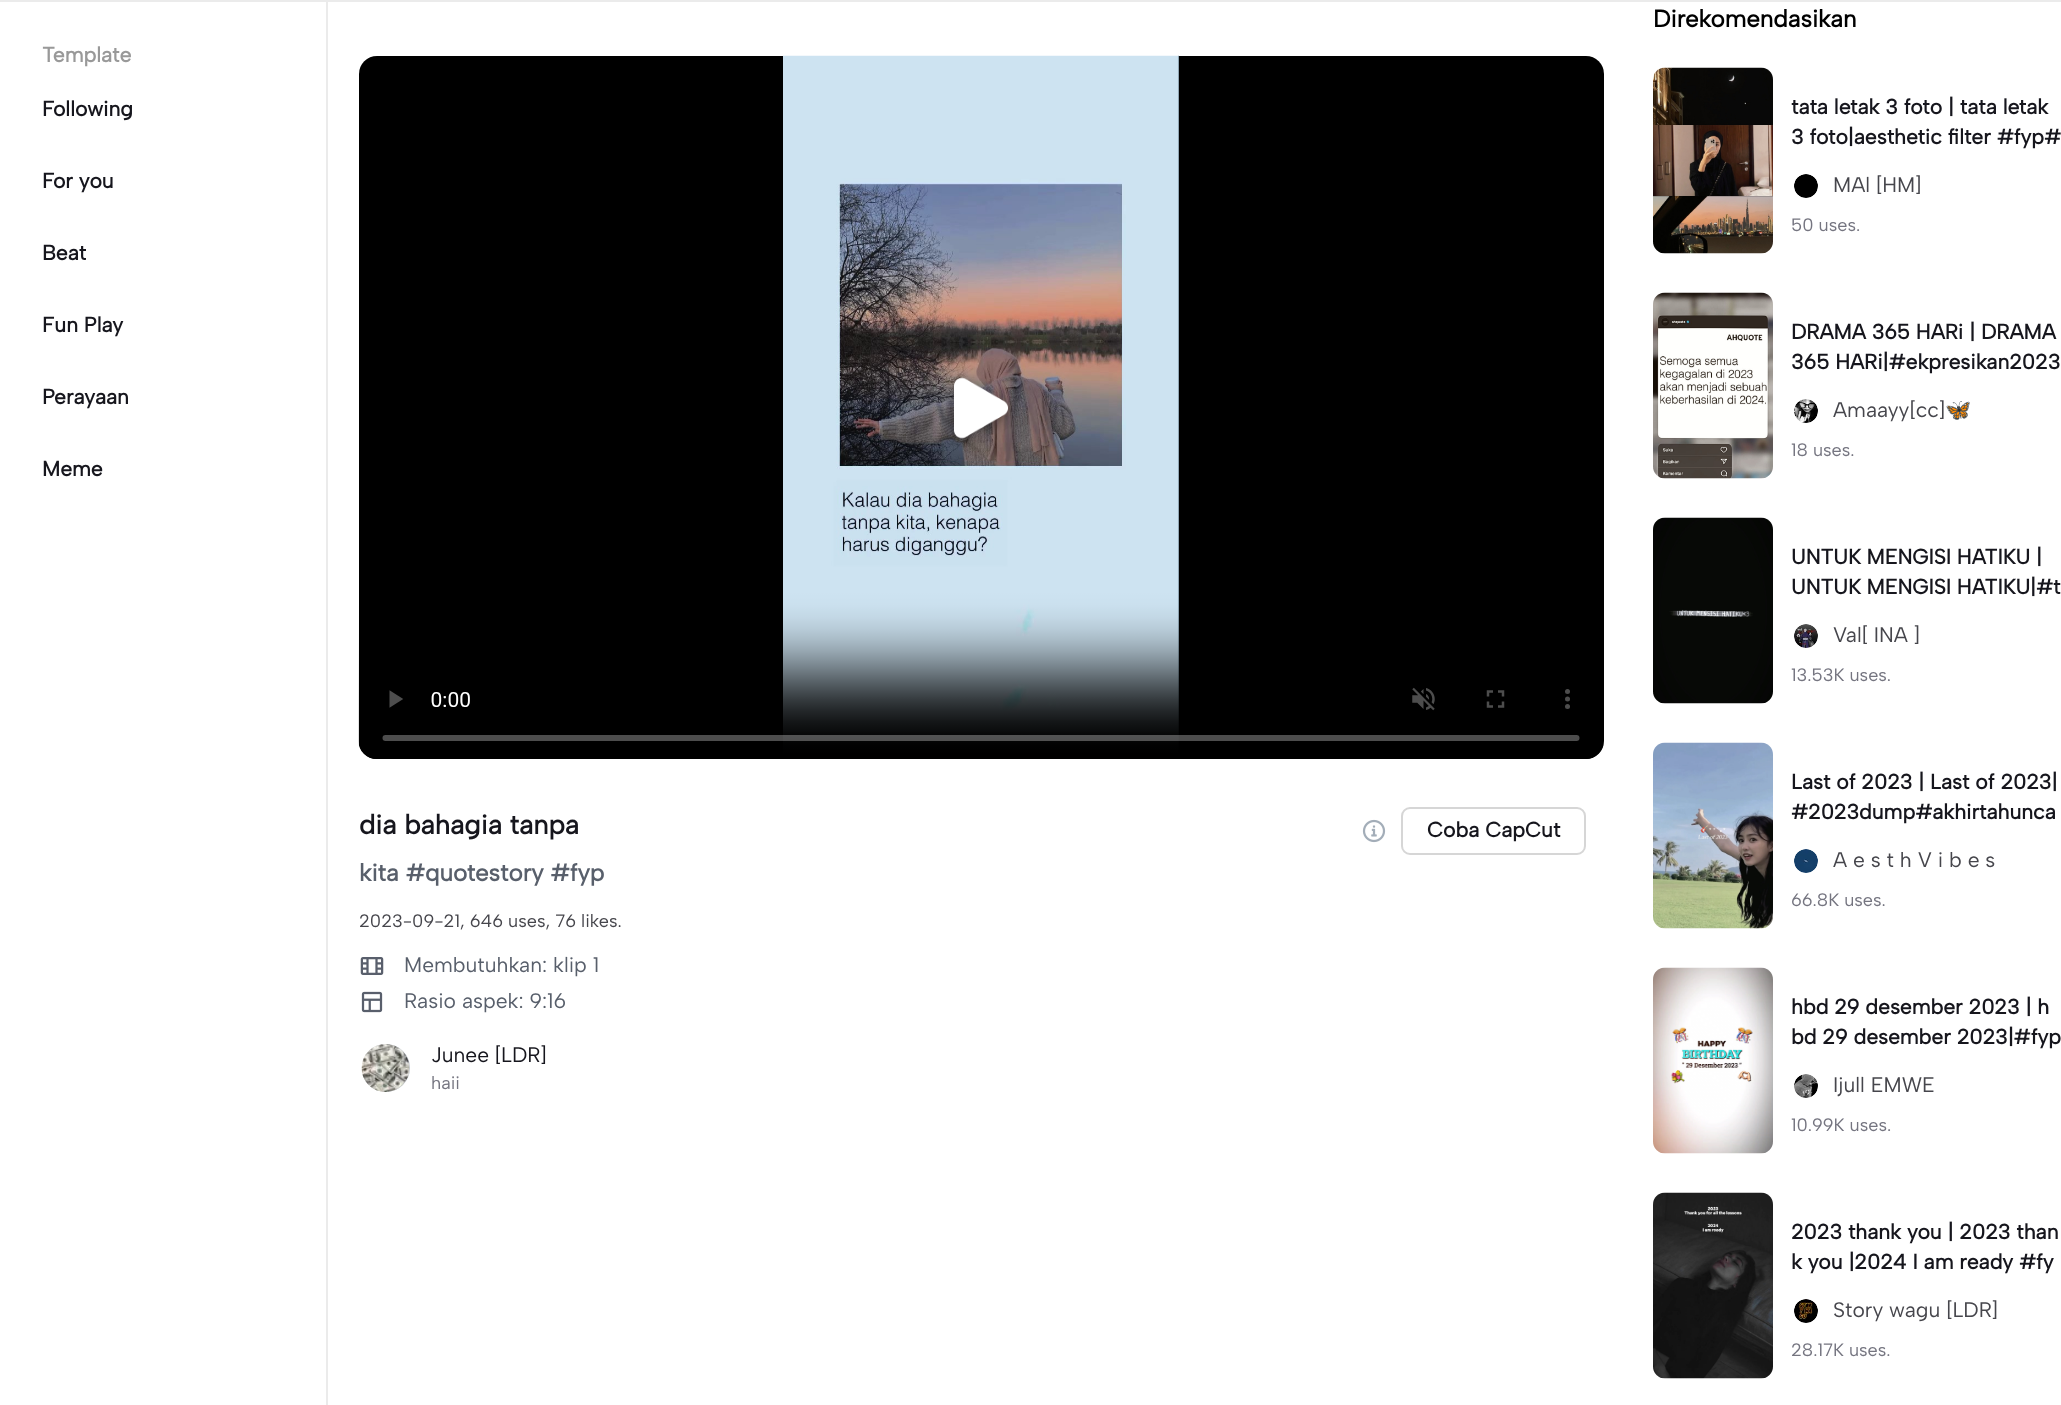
(async () => {
  const canvas = document.querySelector("canvas");
  canvas.width = 2061;
  canvas.height = 1405;
  const ctx = canvas.getContext("2d");
  ctx.miterLimit = 4;
  ctx.fontKerning = "normal";
  async function loadImage(src) {
    const img = new Image();
    img.src = src;
    await img.decode();
    return img;
  }

  ctx.fillStyle = "#ffffff";
  ctx.fillRect(0, 0, 2061, 1405);
  ctx.fillStyle = "#ebebeb";
  ctx.fillRect(0, 0, 2061, 2);
  ctx.fillRect(326, 2, 2, 1403);
  ctx.drawImage(await loadImage("img/1.png"), 1653, 67, 120, 187);
  ctx.drawImage(await loadImage("img/2.png"), 1794, 174, 24, 24);
  ctx.drawImage(await loadImage("img/3.png"), 1653, 292, 120, 187);
  ctx.drawImage(await loadImage("img/4.png"), 1794, 399, 24, 24);
  ctx.drawImage(await loadImage("img/5.png"), 1653, 517, 120, 187);
  ctx.drawImage(await loadImage("img/6.png"), 1794, 624, 24, 24);
  ctx.drawImage(await loadImage("img/7.png"), 1653, 742, 120, 187);
  ctx.drawImage(await loadImage("img/8.png"), 1794, 849, 24, 24);
  ctx.drawImage(await loadImage("img/9.png"), 1653, 967, 120, 187);
  ctx.drawImage(await loadImage("img/10.png"), 1794, 1074, 24, 24);
  ctx.drawImage(await loadImage("img/11.png"), 1653, 1192, 120, 187);
  ctx.drawImage(await loadImage("img/12.png"), 1794, 1299, 24, 24);
  ctx.fillStyle = "#000000";
  ctx.beginPath();
  ctx.roundRect(359, 56, 1245, 703, 18);
  ctx.fill();
  ctx.drawImage(await loadImage("img/13.png"), 358, 55, 1245, 704);
  ctx.drawImage(await loadImage("img/14.png"), 946, 374, 67, 73);
  ctx.drawImage(await loadImage("img/15.png"), 1362, 819, 24, 24);
  ctx.beginPath();
  ctx.roundRect(1402, 808, 183, 46, 8);
  ctx.strokeStyle = "#d6d6d6";
  ctx.lineWidth = 2;
  ctx.stroke();
  ctx.drawImage(await loadImage("img/16.png"), 360, 957, 24, 18);
  ctx.drawImage(await loadImage("img/17.png"), 361, 991, 22, 22);
  ctx.fillStyle = "#c9cdd4";
  ctx.beginPath();
  ctx.arc(386, 1068, 25.5, 0, Math.PI * 2);
  ctx.fill();
  ctx.strokeStyle = "#ffffff";
  ctx.lineWidth = 3;
  ctx.stroke();
  ctx.drawImage(await loadImage("img/18.png"), 361, 1044, 49, 48);
  ctx.font = "bold 21px Albert Sans";
  ctx.fillStyle = "#999999";
  ctx.fillText("Template", 42, 62);
  ctx.fillStyle = "#16161d";
  for (const [text, x, y] of [
    ["Following", 42, 116],
    ["For you", 42, 188],
    ["Beat", 42, 260],
    ["Fun Play", 42, 332],
    ["Perayaan", 42, 404],
    ["Meme", 42, 476],
  ]) {
    ctx.fillText(text, x, y);
  }
  ctx.font = "bold 24px Albert Sans";
  ctx.fillStyle = "#000000";
  ctx.fillText("Direkomendasikan", 1653, 27);
  ctx.font = "bold 21px Albert Sans";
  ctx.fillStyle = "#16161d";
  ctx.fillText("tata letak 3 foto | tata letak", 1791, 114);
  ctx.fillText("3 foto|aesthetic filter #fyp#", 1791, 144);
  ctx.font = "21px Albert Sans";
  ctx.fillStyle = "#46464c";
  ctx.fillText("MAl [HM]", 1833, 192);
  ctx.font = "18px Albert Sans";
  ctx.fillStyle = "#757580";
  ctx.fillText("50 uses.", 1791, 231);
  ctx.font = "bold 21px Albert Sans";
  ctx.fillStyle = "#16161d";
  ctx.fillText("DRAMA 365 HARi | DRAMA", 1791, 339);
  ctx.fillText("365 HARi|#ekpresikan2023", 1791, 369);
  ctx.font = "21px Albert Sans";
  ctx.fillStyle = "#46464c";
  ctx.fillText("Amaayy[cc]", 1833, 417);
  ctx.font = "21px Noto Color Emoji";
  ctx.fillText("🦋", 1945, 417);
  ctx.font = "18px Albert Sans";
  ctx.fillStyle = "#757580";
  ctx.fillText("18 uses.", 1791, 456);
  ctx.font = "bold 21px Albert Sans";
  ctx.fillStyle = "#16161d";
  ctx.fillText("UNTUK MENGISI HATIKU |", 1791, 564);
  ctx.fillText("UNTUK MENGISI HATIKU|#t", 1791, 594);
  ctx.font = "21px Albert Sans";
  ctx.fillStyle = "#46464c";
  ctx.fillText("Val[ INA ]", 1833, 642);
  ctx.font = "18px Albert Sans";
  ctx.fillStyle = "#757580";
  ctx.fillText("13.53K uses.", 1791, 681);
  ctx.font = "bold 21px Albert Sans";
  ctx.fillStyle = "#16161d";
  ctx.fillText("Last of 2023 | Last of 2023|", 1791, 789);
  ctx.fillText("#2023dump#akhirtahunca", 1791, 819);
  ctx.font = "21px Albert Sans";
  ctx.fillStyle = "#46464c";
  ctx.fillText("A e s t h V i b e s", 1833, 867);
  ctx.font = "18px Albert Sans";
  ctx.fillStyle = "#757580";
  ctx.fillText("66.8K uses.", 1791, 906);
  ctx.font = "bold 21px Albert Sans";
  ctx.fillStyle = "#16161d";
  ctx.fillText("hbd 29 desember 2023 | h", 1791, 1014);
  ctx.fillText("bd 29 desember 2023|#fyp", 1791, 1044);
  ctx.font = "21px Albert Sans";
  ctx.fillStyle = "#46464c";
  ctx.fillText("Ijull EMWE", 1833, 1092);
  ctx.font = "18px Albert Sans";
  ctx.fillStyle = "#757580";
  ctx.fillText("10.99K uses.", 1791, 1131);
  ctx.font = "bold 21px Albert Sans";
  ctx.fillStyle = "#16161d";
  ctx.fillText("2023 thank you | 2023 than", 1791, 1239);
  ctx.fillText("k you |2024 I am ready #fy", 1791, 1269);
  ctx.font = "21px Albert Sans";
  ctx.fillStyle = "#46464c";
  ctx.fillText("Story wagu [LDR]", 1833, 1317);
  ctx.font = "18px Albert Sans";
  ctx.fillStyle = "#757580";
  ctx.fillText("28.17K uses.", 1791, 1356);
  ctx.font = "bold 27px Albert Sans";
  ctx.fillStyle = "#16161d";
  ctx.fillText("dia bahagia tanpa", 359, 834);
  ctx.font = "bold 21px Albert Sans";
  ctx.fillText("Coba CapCut", 1427, 837);
  ctx.font = "bold 24px Albert Sans";
  ctx.fillStyle = "#585f6b";
  ctx.fillText("kita #quotestory #fyp", 359, 881);
  ctx.font = "18px Albert Sans";
  ctx.fillStyle = "#46464c";
  ctx.fillText("2023-09-21, 646 uses, 76 likes.", 359, 927);
  ctx.font = "21px Albert Sans";
  ctx.fillStyle = "#585f6b";
  ctx.fillText("Membutuhkan: klip 1", 404, 972);
  ctx.fillText("Rasio aspek: 9:16", 404, 1008);
  ctx.fillStyle = "#16161d";
  ctx.fillText("Junee [LDR]", 431, 1062);
  ctx.font = "18px Albert Sans";
  ctx.fillStyle = "#757580";
  ctx.fillText("haii", 431, 1089);
})();
